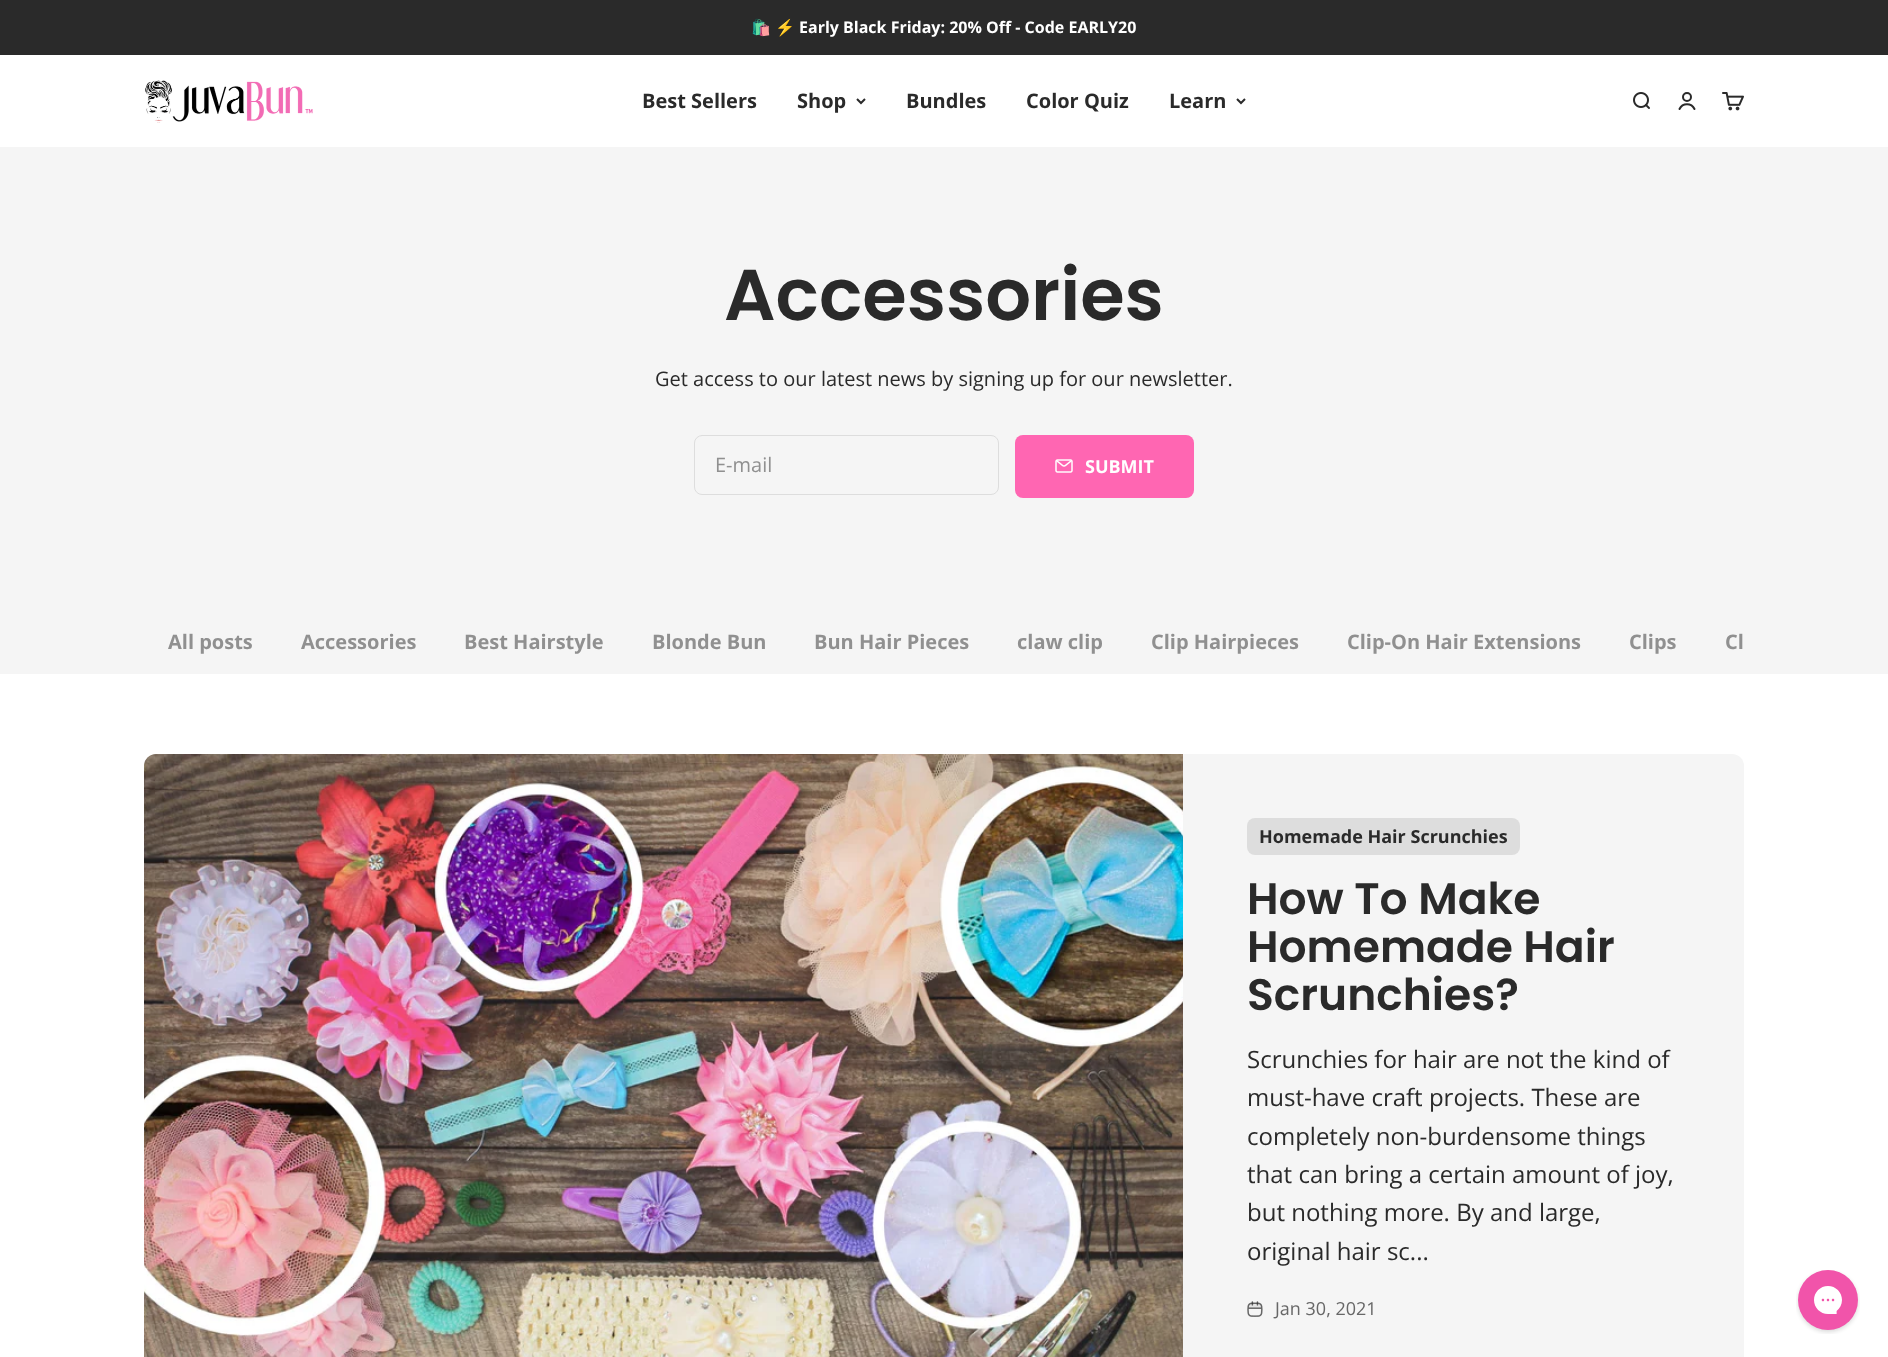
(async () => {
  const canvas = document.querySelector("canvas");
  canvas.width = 1888;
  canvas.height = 1357;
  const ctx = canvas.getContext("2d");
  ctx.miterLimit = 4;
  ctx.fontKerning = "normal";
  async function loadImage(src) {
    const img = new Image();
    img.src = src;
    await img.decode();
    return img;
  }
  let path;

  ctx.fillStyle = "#ffffff";
  ctx.fillRect(0, 0, 1888, 1357);
  ctx.fillStyle = "#2a2a2a";
  ctx.fillRect(0, 0, 1888, 55);
  ctx.drawImage(await loadImage("img/1.png"), 145, 80, 168, 43);
  path = new Path2D("M857 99L861 103L865 99");
  ctx.strokeStyle = "#2a2a2a";
  ctx.lineWidth = 2;
  ctx.stroke(path);
  path = new Path2D("M1237 99L1241 103L1245 99");
  ctx.stroke(path);
  ctx.drawImage(await loadImage("img/2.png"), 1633, 92, 17, 17);
  ctx.beginPath();
  ctx.arc(1687, 97, 4, 0, Math.PI * 2);
  ctx.stroke();
  path = new Path2D("M1679.5 109C1682.5 102.5 1691.5 102.5 1694.5 109");
  ctx.lineCap = "round";
  ctx.stroke(path);
  ctx.drawImage(await loadImage("img/3.png"), 1722, 92, 22, 19);
  ctx.fillStyle = "#f5f5f5";
  ctx.fillRect(0, 147, 1888, 527);
  ctx.beginPath();
  ctx.roundRect(694.5, 435.5, 304, 59, 7.5);
  ctx.strokeStyle = "#dddddd";
  ctx.lineWidth = 1;
  ctx.stroke();
  ctx.fillStyle = "#ff66b2";
  ctx.beginPath();
  ctx.roundRect(1015, 435, 179, 63, 8);
  ctx.fill();
  ctx.drawImage(await loadImage("img/4.png"), 1055, 459, 18, 14);
  ctx.fillStyle = "#f5f5f5";
  ctx.beginPath();
  ctx.roundRect(144, 754, 1600, 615, 12);
  ctx.fill();
  ctx.drawImage(await loadImage("img/5.png"), 144, 754, 1039, 603);
  ctx.fillStyle = "#dddddd";
  ctx.beginPath();
  ctx.roundRect(1247, 818, 273, 37, 8);
  ctx.fill();
  ctx.drawImage(await loadImage("img/6.png"), 1247, 1301, 16, 16);
  ctx.drawImage(await loadImage("img/7.png"), 1796, 1270, 64, 64);
  ctx.font = "bold 16px Noto Color Emoji";
  ctx.fillStyle = "#ffffff";
  ctx.fillText("🛍️", 751, 33);
  ctx.fillText("⚡", 775, 33);
  ctx.font = "bold 16px Open Sans";
  ctx.fillText("Early Black Friday: 20% Off - Code EARLY20", 799, 33);
  ctx.font = "bold 20px Open Sans";
  ctx.fillStyle = "#2a2a2a";
  for (const [text, x, y] of [
    ["Best Sellers", 642, 108],
    ["Shop", 797, 108],
    ["Bundles", 906, 108],
    ["Color Quiz", 1026, 108],
    ["Learn", 1169, 108],
  ]) {
    ctx.fillText(text, x, y);
  }
  ctx.font = "600 72px Poppins";
  ctx.fillText("Accessories", 724, 320);
  ctx.font = "20px Open Sans";
  ctx.fillText("Get access to our latest news by signing up for our newsletter.", 655, 386);
  ctx.fillStyle = "#909090";
  ctx.fillText("E-mail", 715, 472);
  ctx.font = "bold 18px Open Sans";
  ctx.fillStyle = "#ffffff";
  ctx.fillText("SUBMIT", 1085, 473);
  ctx.font = "bold 20px Open Sans";
  ctx.fillStyle = "#909090";
  for (const [text, x, y] of [
    ["All posts", 168, 649],
    ["Accessories", 301, 649],
    ["Best Hairstyle", 464, 649],
    ["Blonde Bun", 652, 649],
    ["Bun Hair Pieces", 814, 649],
    ["claw clip", 1017, 649],
    ["Clip Hairpieces", 1151, 649],
    ["Clip-On Hair Extensions", 1347, 649],
    ["Clips", 1629, 649],
    ["Cl", 1725, 649],
  ]) {
    ctx.fillText(text, x, y);
  }
  ctx.font = "bold 18px Open Sans";
  ctx.fillStyle = "#2a2a2a";
  ctx.fillText("Homemade Hair Scrunchies", 1259, 843);
  ctx.font = "600 44px Poppins";
  for (const [text, x, y] of [
    ["How To Make", 1247, 914],
    ["Homemade Hair", 1247, 962],
    ["Scrunchies?", 1247, 1010],
  ]) {
    ctx.fillText(text, x, y);
  }
  ctx.font = "24px Open Sans";
  for (const [text, x, y] of [
    ["Scrunchies for hair are not the kind of", 1247, 1068],
    ["must-have craft projects. These are", 1247, 1106],
    ["completely non-burdensome things", 1247, 1145],
    ["that can bring a certain amount of joy,", 1247, 1183],
    ["but nothing more. By and large,", 1247, 1221],
    ["original hair sc...", 1247, 1260],
  ]) {
    ctx.fillText(text, x, y);
  }
  ctx.font = "18px Open Sans";
  ctx.fillStyle = "#676767";
  ctx.fillText("Jan 30, 2021", 1275, 1315);
})();
